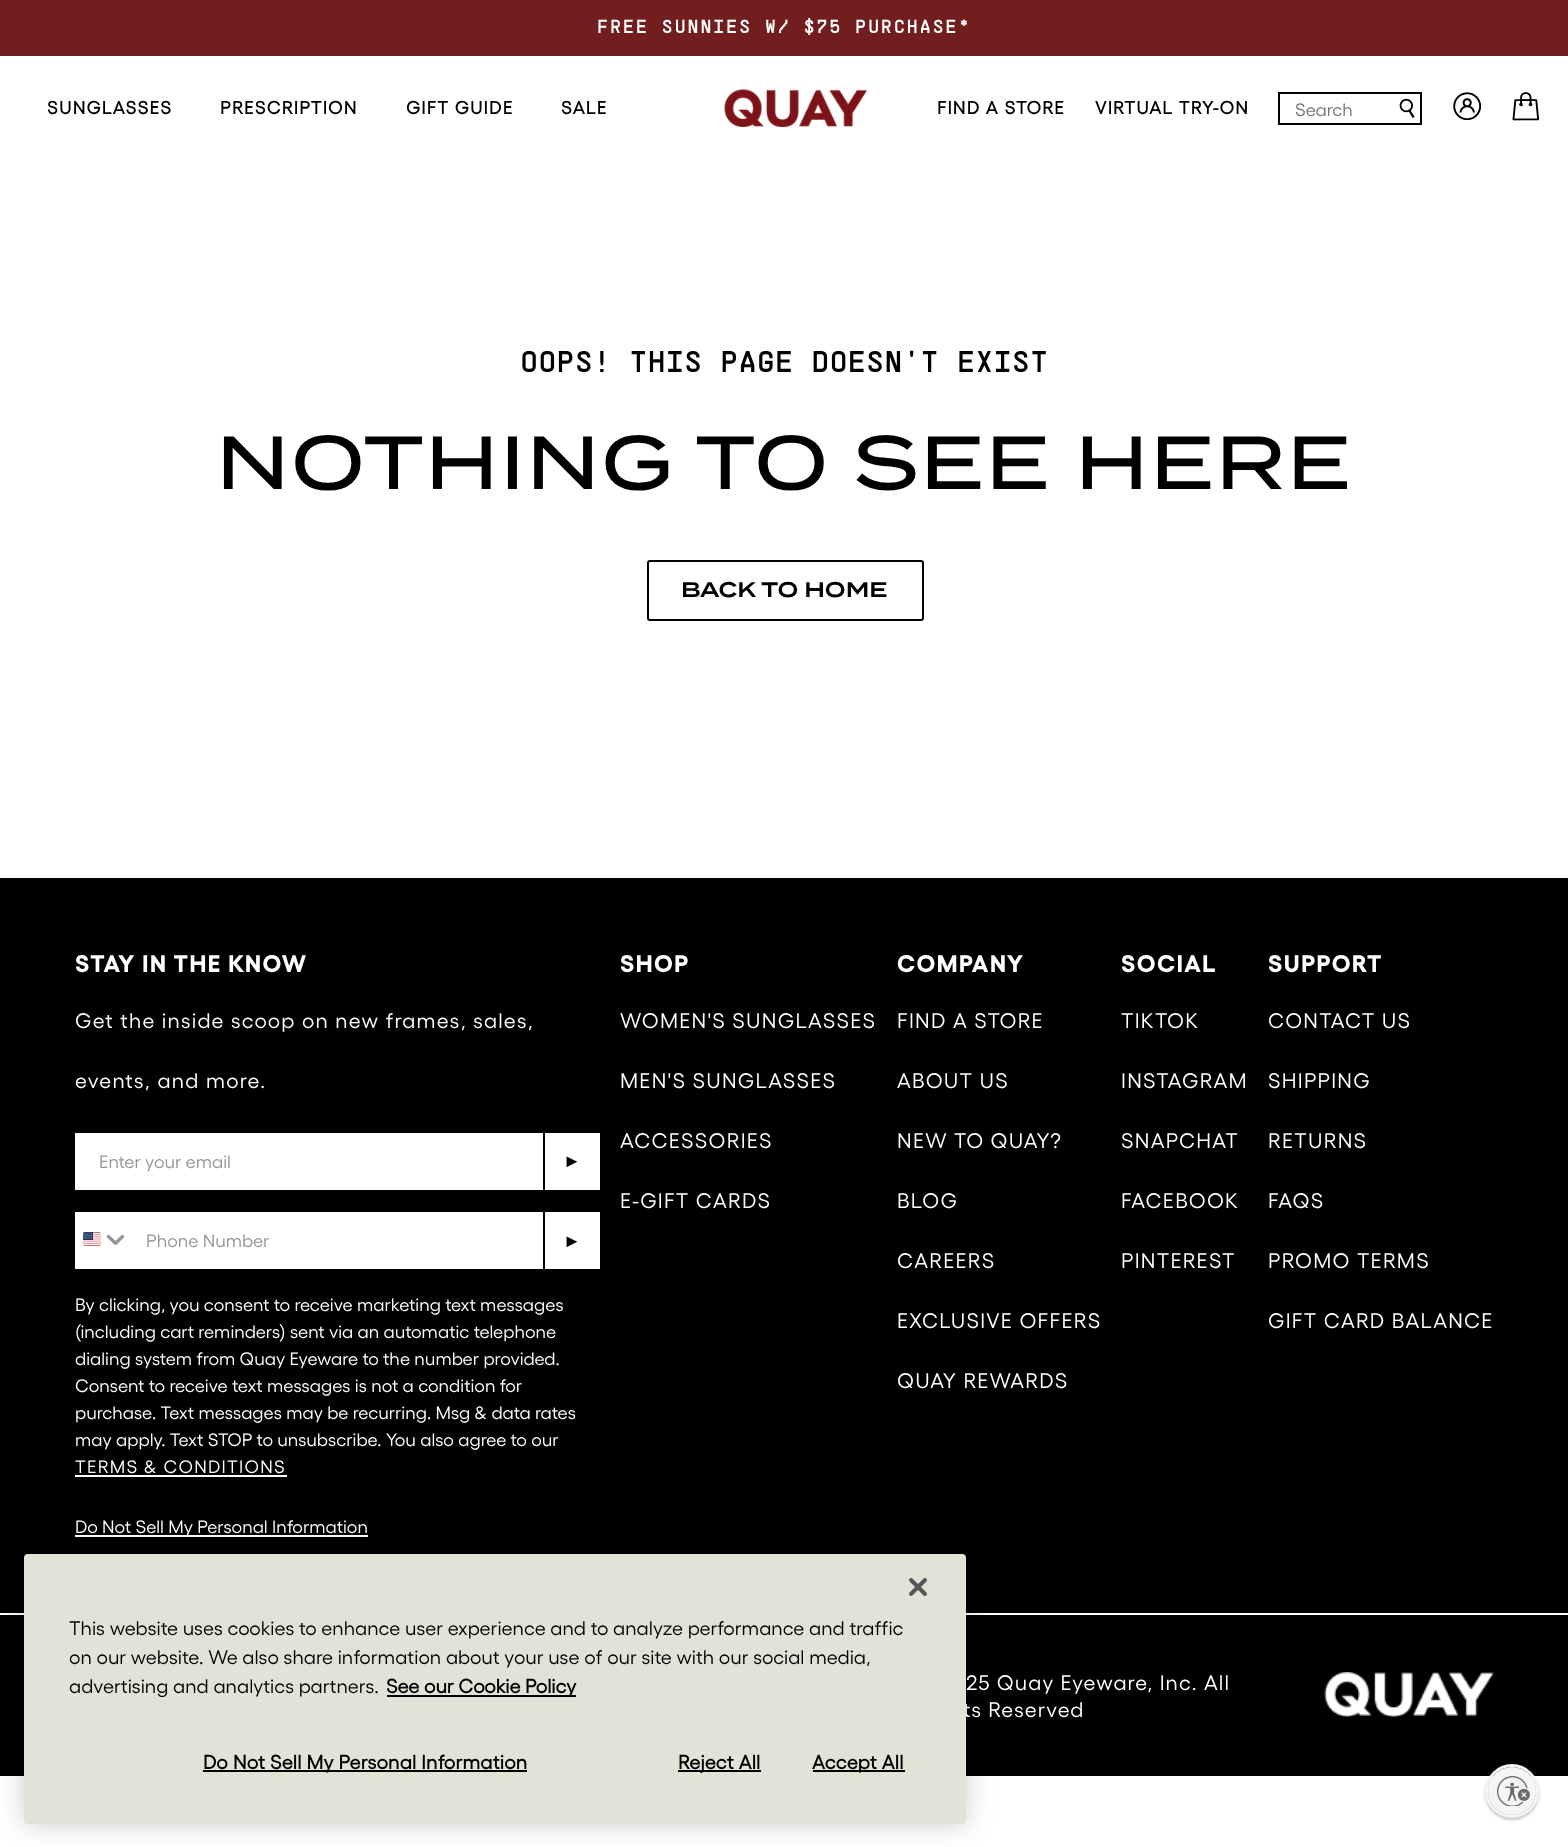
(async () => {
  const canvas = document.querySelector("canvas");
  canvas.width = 1568;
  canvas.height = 1847;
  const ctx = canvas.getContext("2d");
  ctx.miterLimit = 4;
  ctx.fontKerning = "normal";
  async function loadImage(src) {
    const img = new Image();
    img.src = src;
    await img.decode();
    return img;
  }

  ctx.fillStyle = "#ffffff";
  ctx.fillRect(0, 0, 1568, 1847);
  ctx.fillStyle = "#721e1e";
  ctx.fillRect(0, 0, 1568, 56);
  ctx.drawImage(await loadImage("img/1.png"), 724, 89, 143, 38);
  ctx.strokeStyle = "#000000";
  ctx.lineWidth = 2;
  ctx.strokeRect(1279, 93, 142, 31);
  ctx.drawImage(await loadImage("img/2.png"), 1399, 98, 16, 20);
  ctx.drawImage(await loadImage("img/3.png"), 1453, 92, 28, 28);
  ctx.drawImage(await loadImage("img/4.png"), 1512, 92, 28, 29);
  ctx.beginPath();
  ctx.roundRect(648, 561, 275, 59, 2);
  ctx.stroke();
  for (const [x, y, w, h, color] of [
    [0, 878, 1568, 898, "#000000"],
    [75, 1133, 468, 57, "#ffffff"],
    [545, 1133, 55, 57, "#ffffff"],
    [75, 1212, 468, 57, "#ffffff"],
  ]) {
    ctx.fillStyle = color;
    ctx.fillRect(x, y, w, h);
  }
  ctx.drawImage(await loadImage("img/5.png"), 83, 1232, 18, 14);
  ctx.drawImage(await loadImage("img/6.png"), 106, 1234, 19, 11);
  for (const [x, y, w, h, color] of [
    [545, 1212, 55, 57, "#ffffff"],
    [75, 1475, 212, 2, "#ffffff"],
    [75, 1535, 293, 2, "#ffffff"],
    [0, 1613, 1568, 2, "#ffffff"],
  ]) {
    ctx.fillStyle = color;
    ctx.fillRect(x, y, w, h);
  }
  ctx.drawImage(await loadImage("img/7.png"), 1324, 1672, 170, 45);
  ctx.fillStyle = "rgba(0, 0, 0, 0.2)";
  ctx.filter = "blur(13.5px)";
  ctx.beginPath();
  ctx.roundRect(24, 1554, 942, 270, 4);
  ctx.fill();
  ctx.filter = "none";
  ctx.fillStyle = "rgba(0, 0, 0, 0.24)";
  ctx.filter = "blur(1.5px)";
  ctx.beginPath();
  ctx.roundRect(1485, 1766, 54, 54, 27);
  ctx.fill();
  ctx.filter = "none";
  ctx.beginPath();
  ctx.arc(1512, 1791, 25.5, 0, Math.PI * 2);
  ctx.strokeStyle = "#f5f5f5";
  ctx.lineWidth = 3;
  ctx.stroke();
  ctx.save();
  ctx.beginPath();
  ctx.roundRect(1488, 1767, 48, 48, 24);
  ctx.clip();
  ctx.filter = "blur(1.5px)";
  ctx.beginPath();
  ctx.roundRect(1488, 1769, 48, 48, 24);
  ctx.fill();
  ctx.filter = "none";
  ctx.restore();
  ctx.fillStyle = "#f5f5f5";
  ctx.beginPath();
  ctx.arc(1512, 1791, 24, 0, Math.PI * 2);
  ctx.fill();
  ctx.drawImage(await loadImage("img/9.png"), 1497, 1776, 33, 30);
  ctx.letterSpacing = "1.5px";
  ctx.font = "500 18.8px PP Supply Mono";
  ctx.fillStyle = "#ffffff";
  ctx.fillText("FREE SUNNIES W/ $75 PURCHASE*", 597, 33);
  ctx.letterSpacing = "1.25px";
  ctx.font = "bold 18px 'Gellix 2'";
  ctx.fillStyle = "#000000";
  for (const [text, x, y] of [
    ["SUNGLASSES", 47, 114],
    ["PRESCRIPTION", 220, 114],
    ["GIFT GUIDE", 406, 114],
    ["SALE", 561, 114],
    ["FIND A STORE", 937, 114],
    ["VIRTUAL TRY-ON", 1095, 114],
  ]) {
    ctx.fillText(text, x, y);
  }
  ctx.letterSpacing = "0px";
  ctx.font = "18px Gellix";
  ctx.fillStyle = "#757575";
  ctx.fillText("Search", 1295, 116);
  ctx.font = "500 30px PP Supply Mono";
  ctx.fillStyle = "#000000";
  ctx.fillText("OOPS! THIS PAGE DOESN'T EXIST", 520, 372);
  ctx.letterSpacing = "1.5px";
  ctx.font = "500 75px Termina";
  ctx.fillText("NOTHING TO SEE HERE", 216, 489);
  ctx.letterSpacing = "0px";
  ctx.font = "600 21px Termina";
  ctx.fillText("BACK TO HOME", 681, 597);
  ctx.letterSpacing = "1.5px";
  ctx.font = "bold 24px Gellix";
  ctx.fillStyle = "#ffffff";
  ctx.fillText("STAY IN THE KNOW", 75, 972);
  ctx.letterSpacing = "1.25px";
  ctx.font = "21px Gellix";
  ctx.fillText("Get the inside scoop on new frames, sales,", 75, 1028);
  ctx.fillText("events, and more.", 75, 1088);
  ctx.letterSpacing = "0px";
  ctx.font = "18px Gellix";
  ctx.fillStyle = "#949596";
  ctx.fillText("Enter your email", 99, 1168);
  ctx.font = "bold 18px Liberation Sans";
  ctx.fillStyle = "#000000";
  ctx.fillText("►", 563, 1167);
  ctx.font = "18px Gellix";
  ctx.fillStyle = "#949596";
  ctx.fillText("Phone Number", 146, 1247);
  ctx.font = "bold 18px Liberation Sans";
  ctx.fillStyle = "#000000";
  ctx.fillText("►", 563, 1247);
  ctx.font = "18px Gellix";
  ctx.fillStyle = "#ffffff";
  for (const [text, x, y] of [
    ["By clicking, you consent to receive marketing text messages", 75, 1311],
    ["(including cart reminders) sent via an automatic telephone", 75, 1338],
    ["dialing system from Quay Eyeware to the number provided.", 75, 1365],
    ["Consent to receive text messages is not a condition for", 75, 1392],
    ["purchase. Text messages may be recurring. Msg & data rates", 75, 1419],
    ["may apply. Text STOP to unsubscribe. You also agree to our", 75, 1446],
  ]) {
    ctx.fillText(text, x, y);
  }
  ctx.letterSpacing = "1.25px";
  ctx.fillText("TERMS & CONDITIONS", 75, 1473);
  ctx.letterSpacing = "0px";
  ctx.fillText("Do Not Sell My Personal Information", 75, 1533);
  ctx.letterSpacing = "1.5px";
  ctx.font = "bold 24px Gellix";
  ctx.fillText("SHOP", 620, 972);
  ctx.letterSpacing = "1.25px";
  ctx.font = "21px Gellix";
  for (const [text, x, y] of [
    ["WOMEN'S SUNGLASSES", 620, 1028],
    ["MEN'S SUNGLASSES", 620, 1088],
    ["ACCESSORIES", 620, 1148],
    ["E-GIFT CARDS", 620, 1208],
  ]) {
    ctx.fillText(text, x, y);
  }
  ctx.letterSpacing = "1.5px";
  ctx.font = "bold 24px Gellix";
  ctx.fillText("COMPANY", 897, 972);
  ctx.letterSpacing = "1.25px";
  ctx.font = "21px Gellix";
  for (const [text, x, y] of [
    ["FIND A STORE", 897, 1028],
    ["ABOUT US", 897, 1088],
    ["NEW TO QUAY?", 897, 1148],
    ["BLOG", 897, 1208],
    ["CAREERS", 897, 1268],
    ["EXCLUSIVE OFFERS", 897, 1328],
    ["QUAY REWARDS", 897, 1388],
  ]) {
    ctx.fillText(text, x, y);
  }
  ctx.letterSpacing = "1.5px";
  ctx.font = "bold 24px Gellix";
  ctx.fillText("SOCIAL", 1121, 972);
  ctx.letterSpacing = "1.25px";
  ctx.font = "21px Gellix";
  for (const [text, x, y] of [
    ["TIKTOK", 1121, 1028],
    ["INSTAGRAM", 1121, 1088],
    ["SNAPCHAT", 1121, 1148],
    ["FACEBOOK", 1121, 1208],
    ["PINTEREST", 1121, 1268],
  ]) {
    ctx.fillText(text, x, y);
  }
  ctx.letterSpacing = "1.5px";
  ctx.font = "bold 24px Gellix";
  ctx.fillText("SUPPORT", 1268, 972);
  ctx.letterSpacing = "1.25px";
  ctx.font = "21px Gellix";
  for (const [text, x, y] of [
    ["CONTACT US", 1268, 1028],
    ["SHIPPING", 1268, 1088],
    ["RETURNS", 1268, 1148],
    ["FAQS", 1268, 1208],
    ["PROMO TERMS", 1268, 1268],
    ["GIFT CARD BALANCE", 1268, 1328],
  ]) {
    ctx.fillText(text, x, y);
  }
  ctx.letterSpacing = "1.1px";
  ctx.fillText("25 Quay Eyeware, Inc. All", 966, 1690);
  ctx.fillText("ts Reserved", 963, 1717);
  ctx.fillStyle = "#e3e2d7";
  ctx.beginPath();
  ctx.roundRect(24, 1554, 942, 270, 4);
  ctx.fill();
  ctx.drawImage(await loadImage("img/8.png"), 909, 1578, 18, 18);
  ctx.letterSpacing = "0px";
  ctx.font = "19.5px Gellix";
  ctx.fillStyle = "#000000";
  for (const [text, x, y] of [
    ["This website uses cookies to enhance user experience and to analyze performance and traffic", 69, 1635],
    ["on our website. We also share information about your use of our site with our social media,", 69, 1664],
    ["advertising and analytics partners.", 69, 1693],
  ]) {
    ctx.fillText(text, x, y);
  }
  ctx.fillRect(387, 1695, 189, 2);
  ctx.font = "bold 19.5px 'Gellix 2'";
  ctx.fillText("See our Cookie Policy", 386, 1693);
  ctx.fillRect(203, 1770, 324, 2);
  ctx.letterSpacing = "0.2px";
  ctx.fillText("Do Not Sell My Personal Information", 203, 1769);
  ctx.fillRect(678, 1770, 83, 2);
  ctx.fillText("Reject All", 678, 1769);
  ctx.fillRect(813, 1770, 92, 2);
  ctx.fillText("Accept All", 812, 1769);
})();
